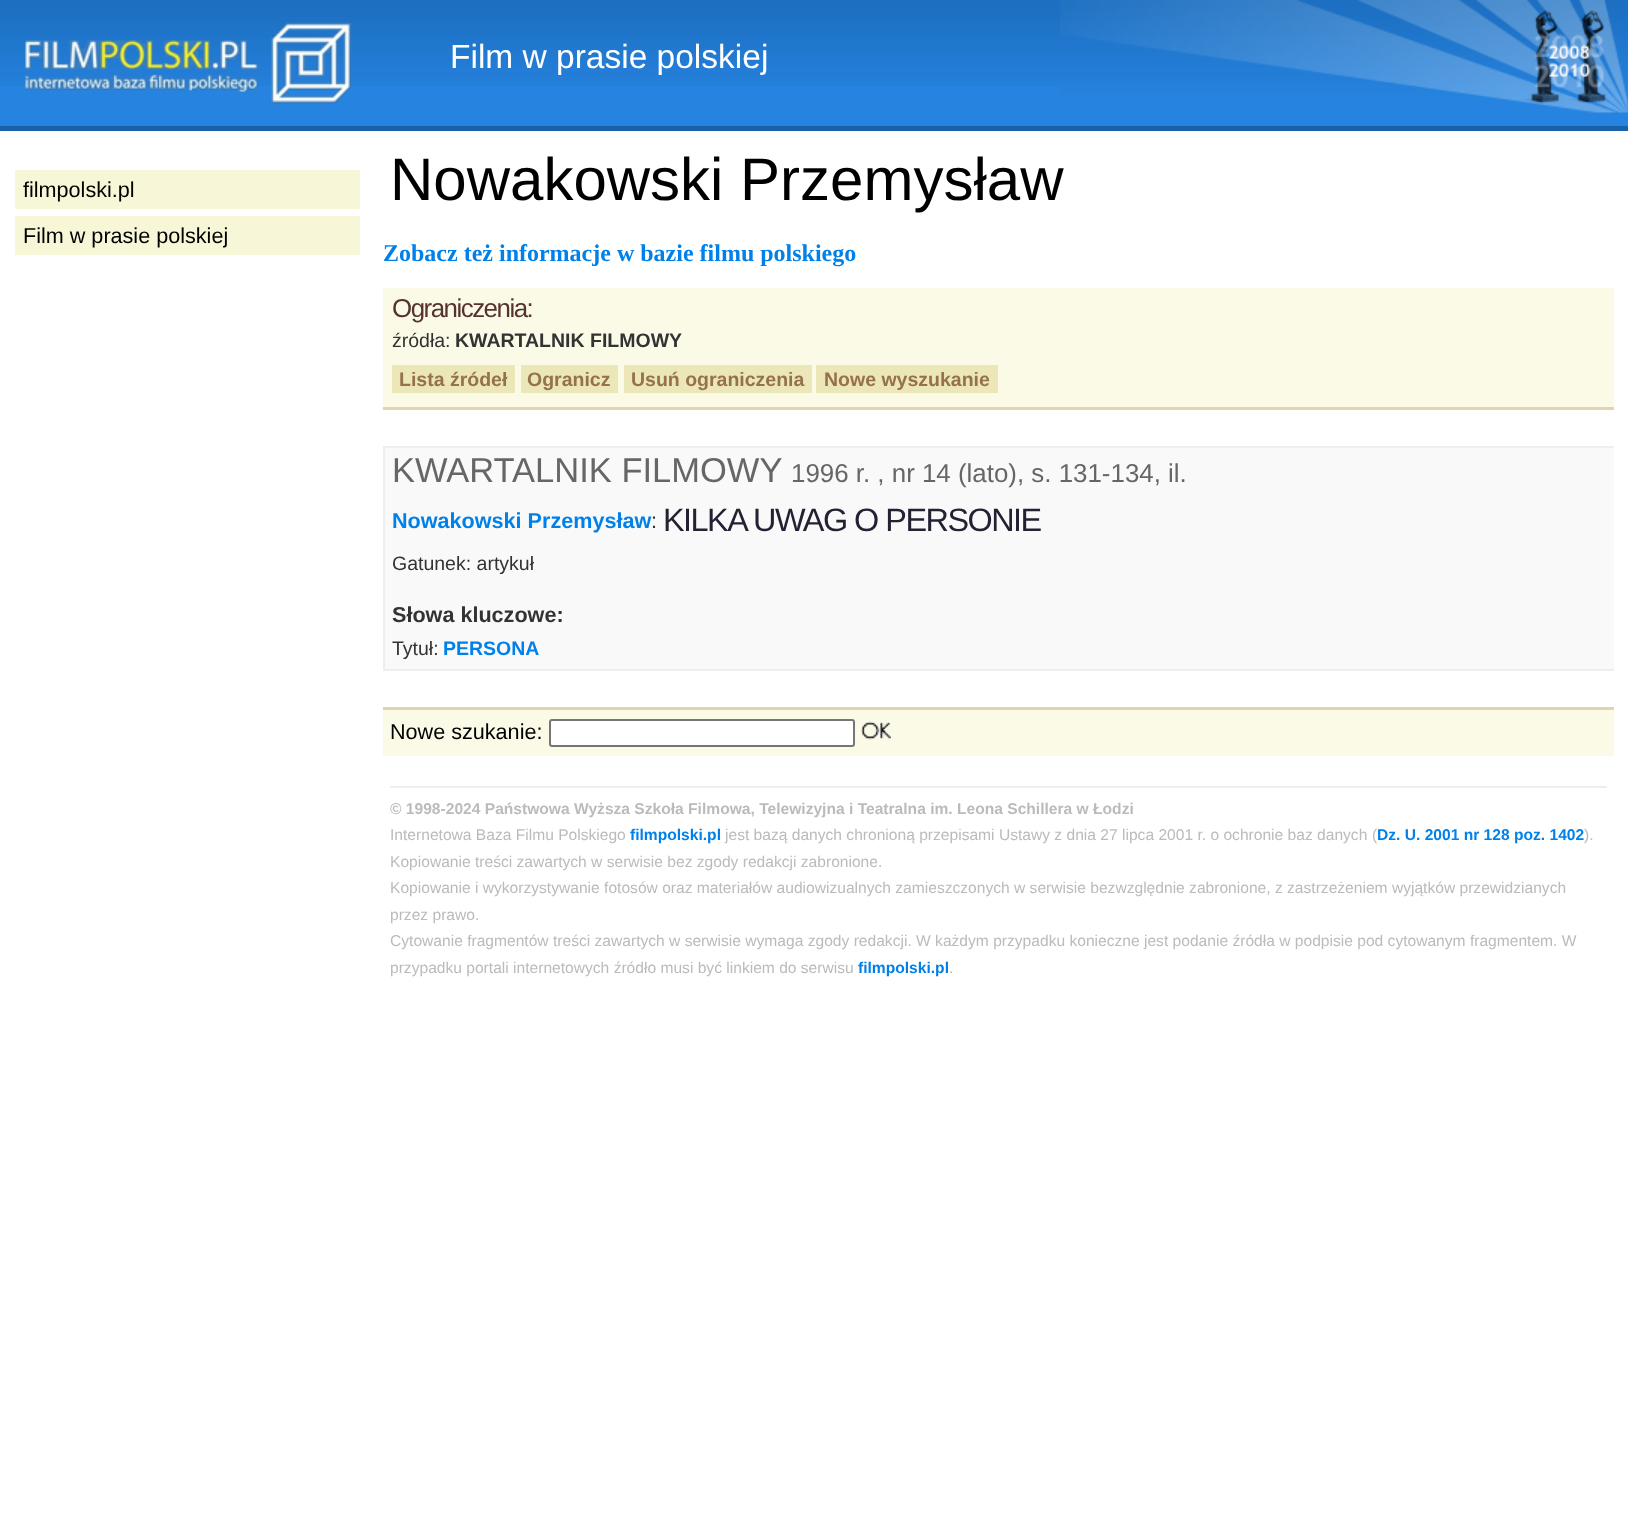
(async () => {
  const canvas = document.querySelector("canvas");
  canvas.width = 1628;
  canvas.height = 1522;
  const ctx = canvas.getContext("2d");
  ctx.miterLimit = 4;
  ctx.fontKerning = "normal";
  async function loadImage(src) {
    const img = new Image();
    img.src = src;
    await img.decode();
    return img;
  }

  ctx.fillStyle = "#ffffff";
  ctx.fillRect(0, 0, 1628, 1522);
  ctx.fillStyle = "#2683df";
  ctx.fillRect(0, 86, 1628, 40);
  ctx.drawImage(await loadImage("img/1.png"), 0, 0, 1060, 86);
  ctx.drawImage(await loadImage("img/2.png"), 1060, 0, 568, 113);
  ctx.drawImage(await loadImage("img/3.png"), 25, 22, 327, 82);
  for (const [x, y, w, h, color] of [
    [15, 170, 345, 39, "#f7f7d7"],
    [15, 216, 345, 39, "#f7f7d7"],
    [0, 126, 1628, 5, "#1860a7"],
    [383, 288, 1231, 119, "#fafae7"],
    [383, 407, 1231, 3, "#dfd6b0"],
    [392, 365, 123, 28, "#ebe7b8"],
    [521, 365, 97, 28, "#ebe7b8"],
    [624, 365, 188, 28, "#ebe7b8"],
    [816, 365, 182, 28, "#ebe7b8"],
    [385, 448, 1229, 221, "#f9f9f9"],
    [383, 446, 1231, 2, "#eeeeee"],
    [383, 669, 1231, 2, "#eeeeee"],
    [383, 446, 2, 225, "#eeeeee"],
    [383, 710, 1231, 46, "#fafae7"],
    [383, 707, 1231, 3, "#dfd6b0"],
  ]) {
    ctx.fillStyle = color;
    ctx.fillRect(x, y, w, h);
  }
  ctx.fillStyle = "#ffffff";
  ctx.beginPath();
  ctx.roundRect(550, 720, 304, 26, 2);
  ctx.fill();
  ctx.strokeStyle = "#767676";
  ctx.lineWidth = 2;
  ctx.stroke();
  ctx.drawImage(await loadImage("img/4.png"), 861, 721, 30, 19);
  ctx.fillStyle = "#eeeeee";
  ctx.fillRect(390, 786, 1217, 2);
  ctx.font = "33.5px Liberation Sans";
  ctx.fillStyle = "#ffffff";
  ctx.fillText("Film w prasie polskiej", 450, 68);
  ctx.font = "21.6px Liberation Sans";
  ctx.fillStyle = "#000000";
  ctx.fillText("filmpolski.pl", 23, 197);
  ctx.fillText("Film w prasie polskiej", 23, 243);
  ctx.font = "60px Liberation Sans";
  ctx.fillText("Nowakowski Przemysław", 390, 200);
  ctx.font = "bold 24px Liberation Serif";
  ctx.fillStyle = "#0081ea";
  ctx.fillText("Zobacz też informacje w bazie filmu polskiego", 383, 261);
  ctx.letterSpacing = "-1.5px";
  ctx.font = "25.9px Liberation Sans";
  ctx.fillStyle = "#55332e";
  ctx.fillText("Ograniczenia:", 392, 317);
  ctx.letterSpacing = "0px";
  ctx.font = "19.5px Liberation Sans";
  ctx.fillStyle = "#333333";
  ctx.fillText("źródła:", 392, 347);
  ctx.font = "bold 19.5px Liberation Sans";
  ctx.fillText("KWARTALNIK FILMOWY", 455, 347);
  ctx.fillStyle = "#96714b";
  for (const [text, x, y] of [
    ["Lista źródeł", 399, 386],
    ["Ogranicz", 527, 386],
    ["Usuń ograniczenia", 631, 386],
    ["Nowe wyszukanie", 824, 386],
  ]) {
    ctx.fillText(text, x, y);
  }
  ctx.font = "34.5px Liberation Sans";
  ctx.fillStyle = "#666666";
  ctx.fillText("KWARTALNIK FILMOWY", 392, 482);
  ctx.font = "25.9px Liberation Sans";
  ctx.fillText("1996 r. , nr 14 (lato), s. 131-134, il.", 791, 482);
  ctx.font = "bold 21.6px Liberation Sans";
  ctx.fillStyle = "#0081ea";
  ctx.fillText("Nowakowski Przemysław", 392, 528);
  ctx.font = "21.6px Liberation Sans";
  ctx.fillStyle = "#333333";
  ctx.fillText(":", 651, 528);
  ctx.letterSpacing = "-1.5px";
  ctx.font = "32.4px Liberation Sans";
  ctx.fillStyle = "#222233";
  ctx.fillText("KILKA UWAG O PERSONIE", 663, 531);
  ctx.letterSpacing = "0px";
  ctx.font = "19.5px Liberation Sans";
  ctx.fillStyle = "#333333";
  ctx.fillText("Gatunek: artykuł", 392, 570);
  ctx.font = "bold 21.6px Liberation Sans";
  ctx.fillText("Słowa kluczowe:", 392, 622);
  ctx.font = "19.5px Liberation Sans";
  ctx.fillText("Tytuł:", 392, 655);
  ctx.font = "bold 19.5px Liberation Sans";
  ctx.fillStyle = "#0081ea";
  ctx.fillText("PERSONA", 443, 655);
  ctx.font = "21.6px Liberation Sans";
  ctx.fillStyle = "#000000";
  ctx.fillText("Nowe szukanie:", 390, 739);
  ctx.font = "bold 15.6px Liberation Sans";
  ctx.fillStyle = "#bbbbbb";
  ctx.fillText("© 1998-2024 Państwowa Wyższa Szkoła Filmowa, Telewizyjna i Teatralna im. Leona Schillera w Łodzi", 390, 814);
  ctx.font = "15.6px Liberation Sans";
  ctx.fillText("Internetowa Baza Filmu Polskiego", 390, 840);
  ctx.font = "bold 15.6px Liberation Sans";
  ctx.fillStyle = "#0081ea";
  ctx.fillText("filmpolski.pl", 630, 840);
  ctx.font = "15.6px Liberation Sans";
  ctx.fillStyle = "#bbbbbb";
  ctx.fillText("jest bazą danych chronioną przepisami Ustawy z dnia 27 lipca 2001 r. o ochronie baz danych", 725, 840);
  ctx.fillText("(", 1372, 840);
  ctx.font = "bold 15.6px Liberation Sans";
  ctx.fillStyle = "#0081ea";
  ctx.fillText("Dz. U. 2001 nr 128 poz. 1402", 1377, 840);
  ctx.font = "15.6px Liberation Sans";
  ctx.fillStyle = "#bbbbbb";
  for (const [text, x, y] of [
    [").", 1584, 840],
    ["Kopiowanie treści zawartych w serwisie bez zgody redakcji zabronione.", 390, 867],
    ["Kopiowanie i wykorzystywanie fotosów oraz materiałów audiowizualnych zamieszczonych w serwisie bezwzględnie zabronione, z zastrzeżeniem wyjątków przewidzianych", 390, 893],
    ["przez prawo.", 390, 920],
    ["Cytowanie fragmentów treści zawartych w serwisie wymaga zgody redakcji. W każdym przypadku konieczne jest podanie źródła w podpisie pod cytowanym fragmentem. W", 390, 946],
    ["przypadku portali internetowych źródło musi być linkiem do serwisu", 390, 973],
  ]) {
    ctx.fillText(text, x, y);
  }
  ctx.font = "bold 15.6px Liberation Sans";
  ctx.fillStyle = "#0081ea";
  ctx.fillText("filmpolski.pl", 858, 973);
  ctx.font = "15.6px Liberation Sans";
  ctx.fillStyle = "#bbbbbb";
  ctx.fillText(".", 949, 973);
})();
